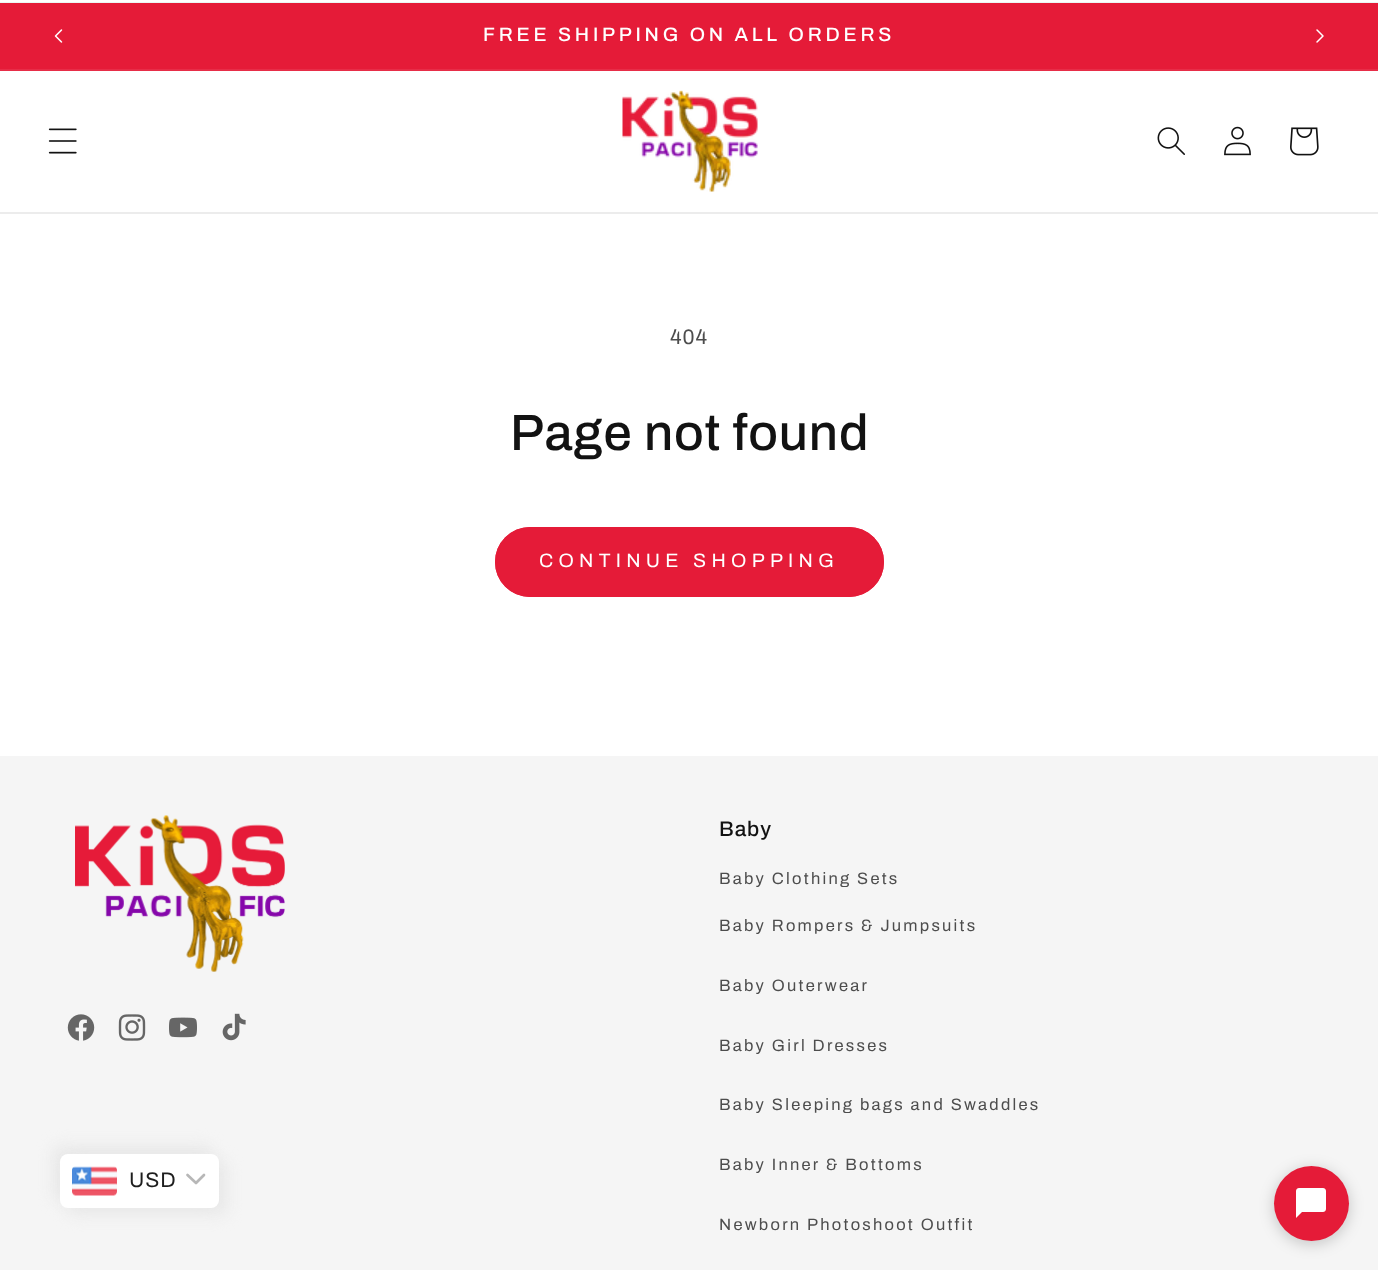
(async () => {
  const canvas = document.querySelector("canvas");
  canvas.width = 1378;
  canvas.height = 1270;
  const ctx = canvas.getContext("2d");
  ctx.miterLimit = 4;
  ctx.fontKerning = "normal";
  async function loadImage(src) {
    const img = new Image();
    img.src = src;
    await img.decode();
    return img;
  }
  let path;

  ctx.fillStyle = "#ffffff";
  ctx.fillRect(0, 0, 1378, 1270);
  for (const [x, y, w, h, color] of [
    [0, 2, 1378, 1, "#ebf7f3"],
    [0, 3, 1378, 66, "#e51b38"],
    [0, 69, 1378, 2, "#e72d48"],
  ]) {
    ctx.fillStyle = color;
    ctx.fillRect(x, y, w, h);
  }
  ctx.drawImage(await loadImage("img/1.png"), 54, 29, 9, 14);
  ctx.drawImage(await loadImage("img/2.png"), 1316, 29, 8, 14);
  ctx.fillStyle = "#ececec";
  ctx.fillRect(0, 212, 1378, 2);
  ctx.drawImage(await loadImage("img/3.png"), 48, 128, 29, 26);
  ctx.drawImage(await loadImage("img/4.png"), 622, 90, 136, 102);
  ctx.drawImage(await loadImage("img/5.png"), 1157, 127, 28, 28);
  ctx.drawImage(await loadImage("img/6.png"), 1224, 126, 27, 30);
  ctx.drawImage(await loadImage("img/7.png"), 1290, 127, 29, 29);
  ctx.fillStyle = "#e51b38";
  ctx.beginPath();
  ctx.roundRect(495, 527, 389, 70, 35);
  ctx.fill();
  ctx.beginPath();
  ctx.roundRect(496, 528, 387, 68, 34);
  ctx.strokeStyle = "#e51b38";
  ctx.lineWidth = 2;
  ctx.stroke();
  ctx.fillStyle = "#f5f5f5";
  ctx.fillRect(0, 756, 1378, 514);
  ctx.fillStyle = "#e8e8e8";
  ctx.filter = "blur(7.5px)";
  ctx.beginPath();
  ctx.roundRect(53, 1146, 159, 54, 8);
  ctx.fill();
  ctx.filter = "none";
  ctx.filter = "blur(7.5px)";
  ctx.beginPath();
  ctx.roundRect(68, 1161, 159, 54, 8);
  ctx.fill();
  ctx.filter = "none";
  ctx.fillStyle = "#ffffff";
  ctx.beginPath();
  ctx.roundRect(60, 1154, 159, 54, 8);
  ctx.fill();
  ctx.drawImage(await loadImage("img/8.png"), 72, 1166, 45, 30);
  path = new Path2D("M187.5 1175L196 1183L204 1175");
  ctx.strokeStyle = "#b7b7b7";
  ctx.lineWidth = 2.7;
  ctx.lineCap = "round";
  ctx.lineJoin = "round";
  ctx.stroke(path);
  ctx.drawImage(await loadImage("img/9.png"), 75, 815, 210, 157);
  ctx.drawImage(await loadImage("img/10.png"), 67, 1014, 28, 27);
  ctx.drawImage(await loadImage("img/11.png"), 118, 1014, 28, 27);
  ctx.drawImage(await loadImage("img/12.png"), 169, 1017, 28, 21);
  ctx.drawImage(await loadImage("img/13.png"), 222, 1013, 24, 28);
  ctx.fillStyle = "rgba(0, 0, 0, 0.2)";
  ctx.filter = "blur(7.5px)";
  ctx.beginPath();
  ctx.roundRect(1274, 1169, 75, 75, 37.5);
  ctx.fill();
  ctx.filter = "none";
  ctx.fillStyle = "#e51b38";
  ctx.beginPath();
  ctx.arc(1311.5, 1203.5, 37.5, 0, Math.PI * 2);
  ctx.fill();
  ctx.drawImage(await loadImage("img/14.png"), 1296, 1188, 30, 30);
  ctx.letterSpacing = "3.75px";
  ctx.font = "500 19.5px Archivo";
  ctx.fillStyle = "#ffffff";
  ctx.fillText("FREE SHIPPING ON ALL ORDERS", 483, 41);
  ctx.letterSpacing = "0.9px";
  ctx.font = "21px Archivo";
  ctx.fillStyle = "#4d4d4d";
  ctx.fillText("404", 670, 344);
  ctx.font = "500 51px Archivo";
  ctx.fillStyle = "#121212";
  ctx.fillText("Page not found", 510, 450);
  ctx.letterSpacing = "5.25px";
  ctx.font = "19.5px Archivo";
  ctx.fillStyle = "#ffffff";
  ctx.fillText("CONTINUE SHOPPING", 539, 567);
  ctx.letterSpacing = "0.9px";
  ctx.font = "21px Archivo";
  ctx.fillStyle = "#1e1e1e";
  ctx.fillText("USD", 129, 1187);
  ctx.font = "500 21px Archivo";
  ctx.fillStyle = "#121212";
  ctx.fillText("Baby", 719, 836);
  ctx.letterSpacing = "2.25px";
  ctx.font = "16.5px Archivo";
  ctx.fillStyle = "#4d4d4d";
  for (const [text, x, y] of [
    ["Baby Clothing Sets", 719, 884],
    ["Baby Rompers & Jumpsuits", 719, 931],
    ["Baby Outerwear", 719, 991],
    ["Baby Girl Dresses", 719, 1051],
    ["Baby Sleeping bags and Swaddles", 719, 1110],
    ["Baby Inner & Bottoms", 719, 1170],
    ["Newborn Photoshoot Outfit", 719, 1230],
  ]) {
    ctx.fillText(text, x, y);
  }
})();
